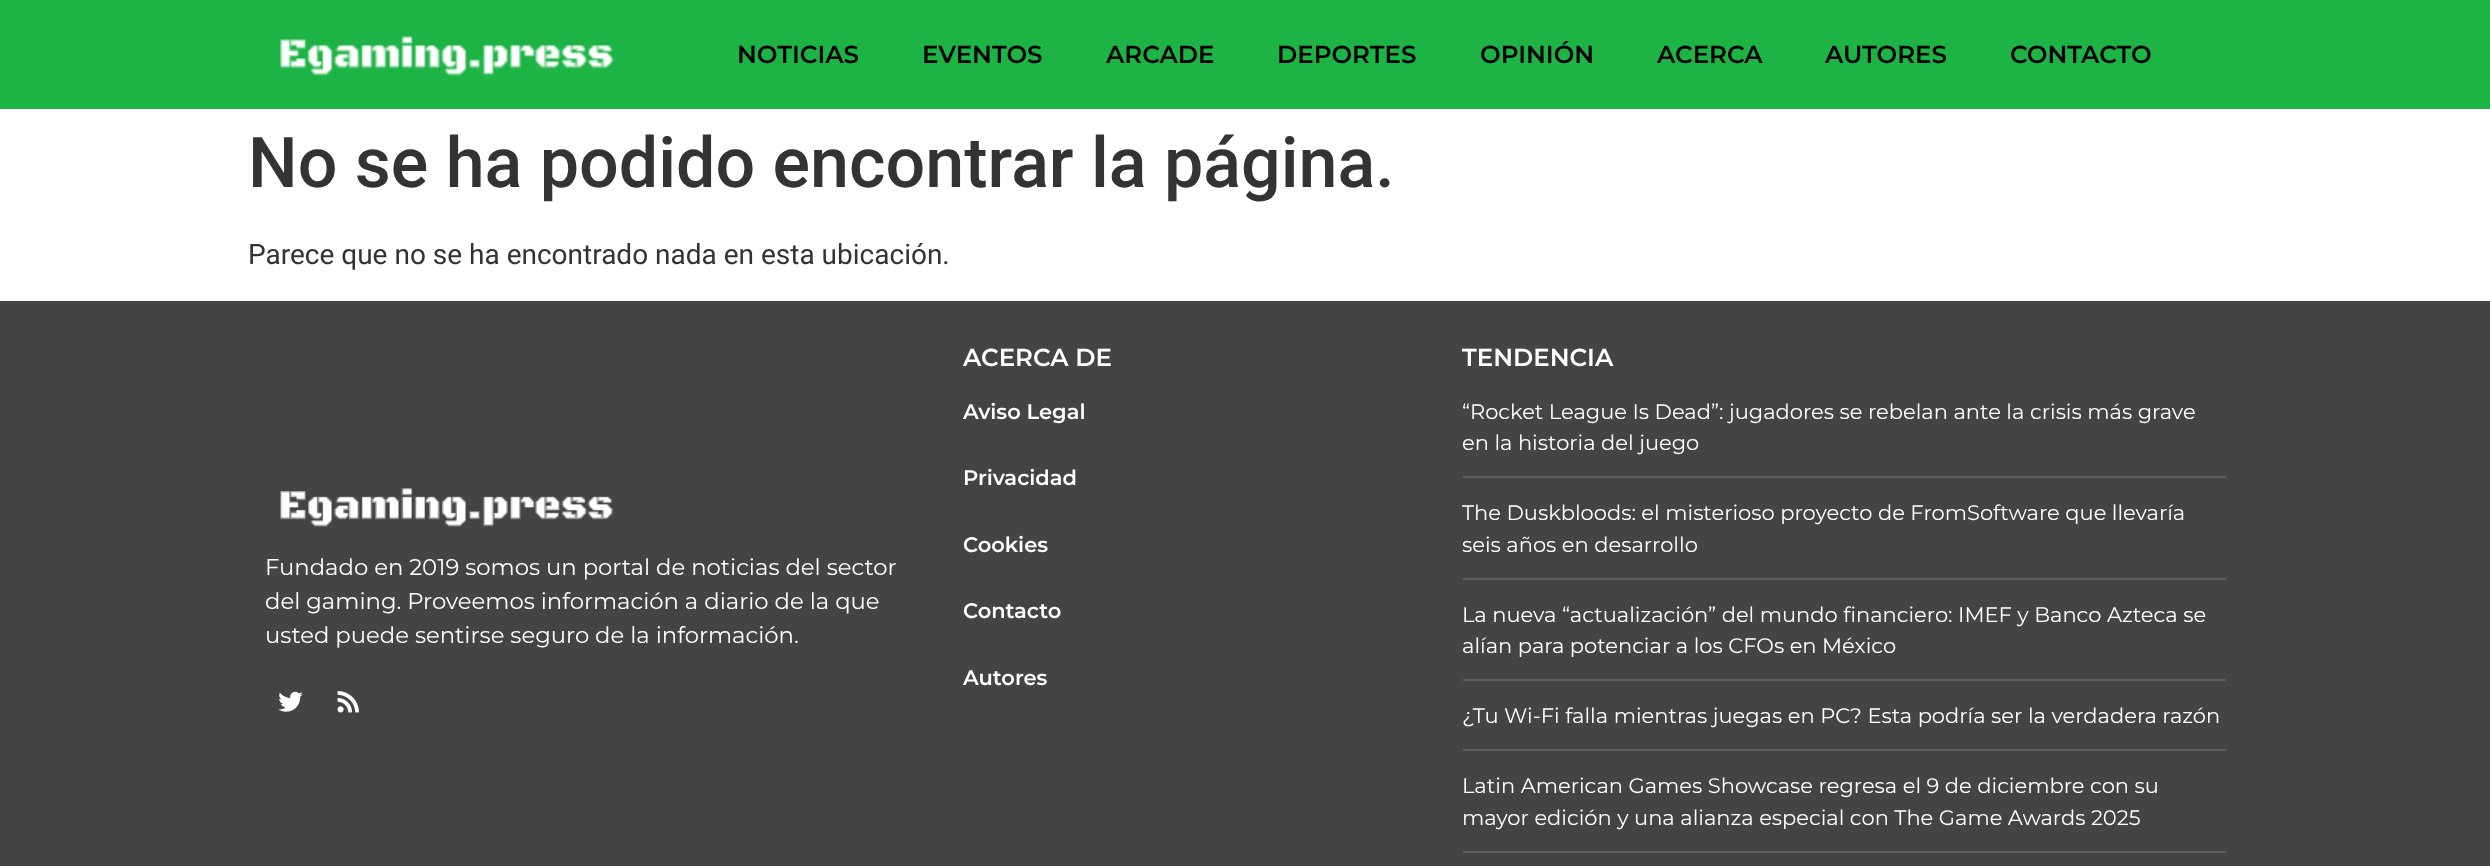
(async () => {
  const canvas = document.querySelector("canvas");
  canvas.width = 2490;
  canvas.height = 866;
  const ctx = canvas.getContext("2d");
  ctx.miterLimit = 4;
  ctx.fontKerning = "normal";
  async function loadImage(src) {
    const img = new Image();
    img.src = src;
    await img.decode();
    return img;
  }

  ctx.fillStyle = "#ffffff";
  ctx.fillRect(0, 0, 2490, 866);
  ctx.fillStyle = "#1db345";
  ctx.fillRect(0, 0, 2490, 109);
  ctx.drawImage(await loadImage("img/1.png"), 280, 36, 334, 40);
  ctx.fillStyle = "#444444";
  ctx.fillRect(0, 301, 2490, 565);
  ctx.drawImage(await loadImage("img/2.png"), 280, 488, 333, 39);
  ctx.drawImage(await loadImage("img/3.png"), 278, 691, 25, 21);
  ctx.drawImage(await loadImage("img/4.png"), 337, 691, 22, 22);
  for (const [x, y, w, h, color] of [
    [1463, 476, 763, 2, "#5e5e5e"],
    [1463, 578, 763, 2, "#5e5e5e"],
    [1463, 679, 763, 2, "#5e5e5e"],
    [1463, 749, 763, 2, "#5e5e5e"],
    [1463, 851, 763, 2, "#5e5e5e"],
  ]) {
    ctx.fillStyle = color;
    ctx.fillRect(x, y, w, h);
  }
  ctx.font = "600 24.5px Montserrat";
  ctx.fillStyle = "#000000";
  for (const [text, x, y] of [
    ["NOTICIAS", 737, 63],
    ["EVENTOS", 922, 63],
    ["ARCADE", 1106, 63],
    ["DEPORTES", 1277, 63],
    ["OPINIÓN", 1480, 63],
    ["ACERCA", 1657, 63],
    ["AUTORES", 1825, 63],
    ["CONTACTO", 2010, 63],
  ]) {
    ctx.fillText(text, x, y);
  }
  ctx.font = "500 70px Roboto";
  ctx.fillStyle = "#333333";
  ctx.fillText("No se ha podido encontrar la página.", 248, 187);
  ctx.font = "28px Roboto";
  ctx.fillText("Parece que no se ha encontrado nada en esta ubicación.", 248, 264);
  ctx.font = "22.75px Montserrat";
  ctx.fillStyle = "#ffffff";
  for (const [text, x, y] of [
    ["Fundado en 2019 somos un portal de noticias del sector", 265, 575],
    ["del gaming. Proveemos información a diario de la que", 265, 609],
    ["usted puede sentirse seguro de la información.", 265, 643],
  ]) {
    ctx.fillText(text, x, y);
  }
  ctx.font = "600 24.5px Montserrat";
  ctx.fillText("ACERCA DE", 963, 366);
  ctx.font = "600 21px Montserrat";
  for (const [text, x, y] of [
    ["Aviso Legal", 963, 419],
    ["Privacidad", 963, 485],
    ["Cookies", 963, 552],
    ["Contacto", 963, 618],
    ["Autores", 963, 685],
  ]) {
    ctx.fillText(text, x, y);
  }
  ctx.font = "600 24.5px Montserrat";
  ctx.fillText("TENDENCIA", 1462, 366);
  ctx.font = "21px Montserrat";
  for (const [text, x, y] of [
    ["“Rocket League Is Dead”: jugadores se rebelan ante la crisis más grave", 1462, 419],
    ["en la historia del juego", 1462, 450],
    ["The Duskbloods: el misterioso proyecto de FromSoftware que llevaría", 1462, 520],
    ["seis años en desarrollo", 1462, 552],
    ["La nueva “actualización” del mundo financiero: IMEF y Banco Azteca se", 1462, 622],
    ["alían para potenciar a los CFOs en México", 1462, 653],
    ["¿Tu Wi-Fi falla mientras juegas en PC? Esta podría ser la verdadera razón", 1462, 723],
    ["Latin American Games Showcase regresa el 9 de diciembre con su", 1462, 793],
    ["mayor edición y una alianza especial con The Game Awards 2025", 1462, 825],
  ]) {
    ctx.fillText(text, x, y);
  }
})();
